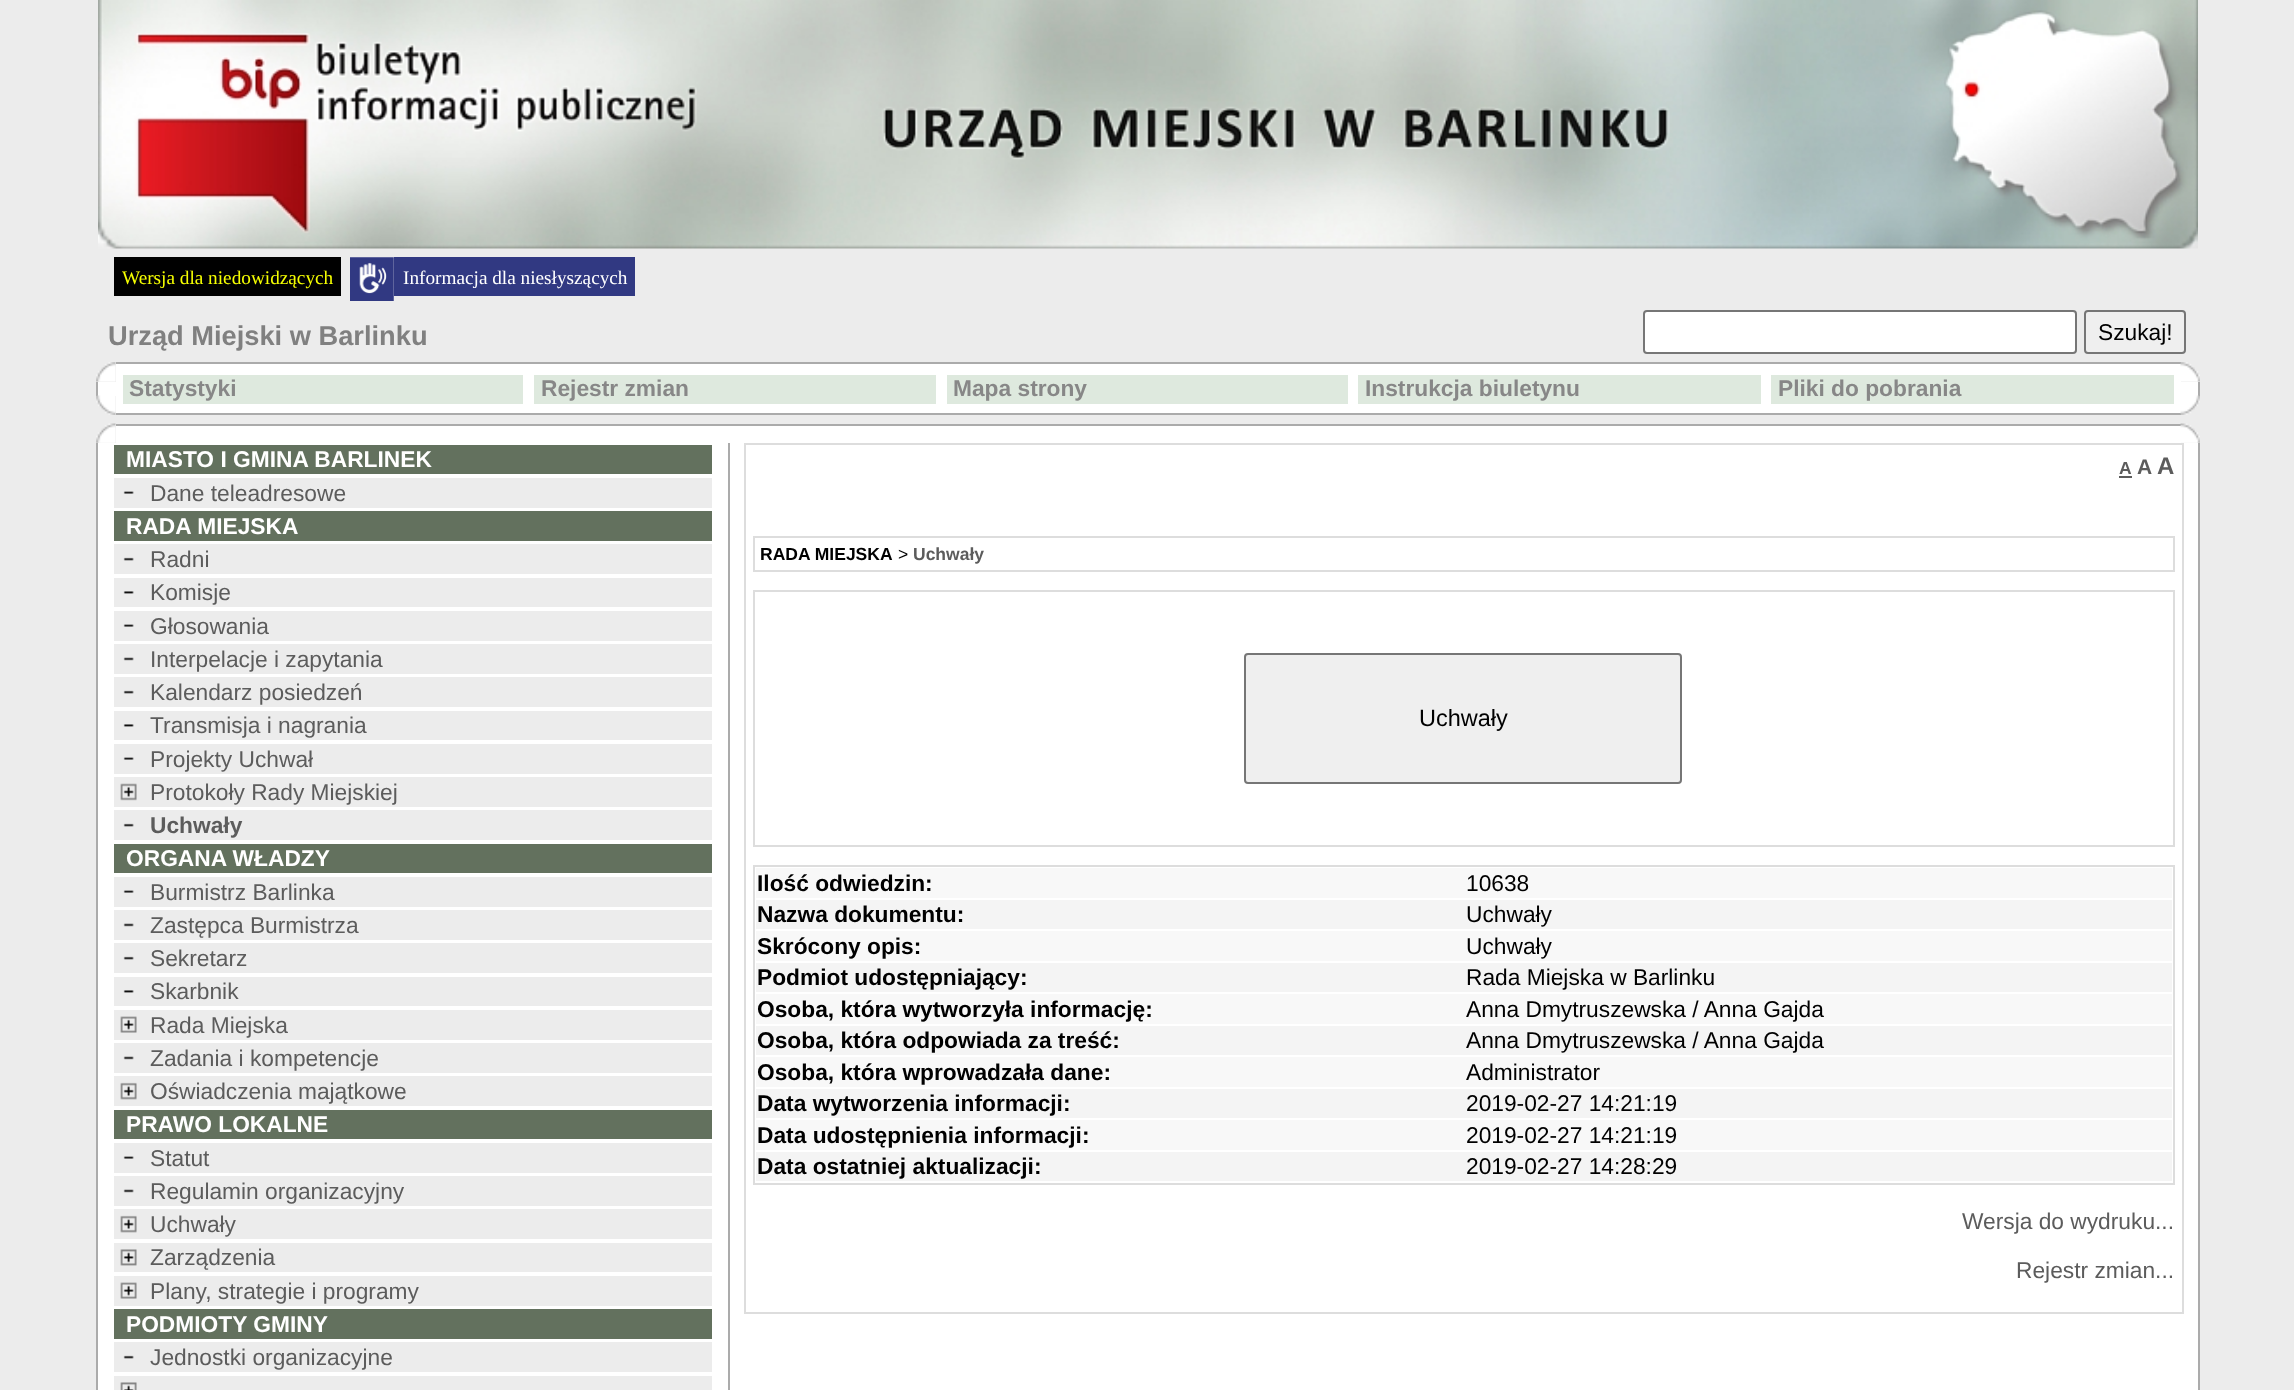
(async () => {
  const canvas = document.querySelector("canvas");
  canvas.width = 2294;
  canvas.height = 1390;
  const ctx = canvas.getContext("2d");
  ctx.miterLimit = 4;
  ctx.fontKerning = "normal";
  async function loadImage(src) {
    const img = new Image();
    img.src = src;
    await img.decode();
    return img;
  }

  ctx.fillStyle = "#ececec";
  ctx.fillRect(0, 0, 2294, 1390);
  ctx.drawImage(await loadImage("img/1.png"), 98, 0, 2100, 249);
  ctx.fillStyle = "#000000";
  ctx.fillRect(114, 257, 227, 39);
  ctx.drawImage(await loadImage("img/2.png"), 350, 257, 44, 44);
  ctx.fillStyle = "#313982";
  ctx.fillRect(394, 257, 241, 39);
  ctx.fillStyle = "#ffffff";
  ctx.beginPath();
  ctx.roundRect(1644, 311, 432, 42, 3);
  ctx.fill();
  ctx.strokeStyle = "#767676";
  ctx.lineWidth = 2;
  ctx.stroke();
  ctx.fillStyle = "#efefef";
  ctx.beginPath();
  ctx.roundRect(2085, 311, 100, 42, 3);
  ctx.fill();
  ctx.stroke();
  ctx.drawImage(await loadImage("img/3.png"), 96, 362, 20, 20);
  ctx.fillStyle = "#ffffff";
  ctx.fillRect(116, 364, 2065, 49);
  ctx.fillStyle = "#ababab";
  ctx.fillRect(116, 362, 2065, 2);
  ctx.drawImage(await loadImage("img/4.png"), 2180, 362, 20, 20);
  for (const [x, y, w, h, color] of [
    [116, 413, 2065, 2, "#ababab"],
    [123, 375, 400, 29, "#dee9de"],
    [534, 375, 402, 29, "#dee9de"],
    [947, 375, 401, 29, "#dee9de"],
    [1358, 375, 403, 29, "#dee9de"],
    [1771, 375, 403, 29, "#dee9de"],
    [98, 382, 18, 14, "#ffffff"],
    [96, 382, 2, 14, "#ababab"],
    [2181, 382, 17, 14, "#ffffff"],
    [2198, 382, 2, 14, "#ababab"],
  ]) {
    ctx.fillStyle = color;
    ctx.fillRect(x, y, w, h);
  }
  ctx.drawImage(await loadImage("img/5.png"), 96, 395, 20, 20);
  ctx.drawImage(await loadImage("img/6.png"), 2180, 395, 20, 20);
  ctx.drawImage(await loadImage("img/7.png"), 96, 423, 20, 20);
  ctx.fillStyle = "#ffffff";
  ctx.fillRect(116, 426, 2065, 17);
  ctx.fillStyle = "#ababab";
  ctx.fillRect(116, 424, 2065, 2);
  ctx.drawImage(await loadImage("img/8.png"), 2180, 423, 20, 20);
  for (const [x, y, w, h, color] of [
    [98, 443, 2100, 947, "#ffffff"],
    [2198, 443, 2, 947, "#ababab"],
    [96, 443, 2, 947, "#ababab"],
    [114, 445, 598, 29, "#63715e"],
    [114, 478, 598, 30, "#ececec"],
  ]) {
    ctx.fillStyle = color;
    ctx.fillRect(x, y, w, h);
  }
  ctx.drawImage(await loadImage("img/9.png"), 123, 491, 11, 3);
  ctx.fillStyle = "#63715e";
  ctx.fillRect(114, 511, 598, 30);
  ctx.fillStyle = "#ececec";
  ctx.fillRect(114, 544, 598, 30);
  ctx.drawImage(await loadImage("img/10.png"), 123, 557, 11, 4);
  ctx.fillRect(114, 578, 598, 29);
  ctx.drawImage(await loadImage("img/11.png"), 123, 591, 11, 3);
  ctx.fillRect(114, 611, 598, 30);
  ctx.drawImage(await loadImage("img/9.png"), 123, 624, 11, 3);
  ctx.fillRect(114, 644, 598, 30);
  ctx.drawImage(await loadImage("img/12.png"), 123, 657, 11, 4);
  ctx.fillRect(114, 677, 598, 30);
  ctx.drawImage(await loadImage("img/10.png"), 123, 690, 11, 4);
  ctx.fillRect(114, 711, 598, 29);
  ctx.drawImage(await loadImage("img/11.png"), 123, 724, 11, 3);
  ctx.fillRect(114, 744, 598, 30);
  ctx.drawImage(await loadImage("img/9.png"), 123, 757, 11, 3);
  ctx.fillRect(114, 777, 598, 30);
  ctx.drawImage(await loadImage("img/13.png"), 120, 783, 17, 18);
  ctx.fillRect(114, 810, 598, 30);
  ctx.drawImage(await loadImage("img/10.png"), 123, 823, 11, 4);
  ctx.fillStyle = "#63715e";
  ctx.fillRect(114, 844, 598, 29);
  ctx.fillStyle = "#ececec";
  ctx.fillRect(114, 877, 598, 30);
  ctx.drawImage(await loadImage("img/9.png"), 123, 890, 11, 3);
  ctx.fillRect(114, 910, 598, 30);
  ctx.drawImage(await loadImage("img/12.png"), 123, 923, 11, 4);
  ctx.fillRect(114, 943, 598, 30);
  ctx.drawImage(await loadImage("img/10.png"), 123, 956, 11, 4);
  ctx.fillRect(114, 977, 598, 29);
  ctx.drawImage(await loadImage("img/11.png"), 123, 990, 11, 3);
  ctx.fillRect(114, 1010, 598, 30);
  ctx.drawImage(await loadImage("img/14.png"), 120, 1016, 17, 17);
  ctx.fillRect(114, 1043, 598, 30);
  ctx.drawImage(await loadImage("img/12.png"), 123, 1056, 11, 4);
  ctx.fillRect(114, 1076, 598, 30);
  ctx.drawImage(await loadImage("img/15.png"), 120, 1082, 17, 18);
  ctx.fillStyle = "#63715e";
  ctx.fillRect(114, 1110, 598, 29);
  ctx.fillStyle = "#ececec";
  ctx.fillRect(114, 1143, 598, 30);
  ctx.drawImage(await loadImage("img/9.png"), 123, 1156, 11, 3);
  ctx.fillRect(114, 1176, 598, 30);
  ctx.drawImage(await loadImage("img/12.png"), 123, 1189, 11, 4);
  ctx.fillRect(114, 1209, 598, 30);
  ctx.drawImage(await loadImage("img/15.png"), 120, 1215, 17, 18);
  ctx.fillRect(114, 1243, 598, 29);
  ctx.drawImage(await loadImage("img/16.png"), 120, 1249, 17, 17);
  ctx.fillRect(114, 1276, 598, 30);
  ctx.drawImage(await loadImage("img/14.png"), 120, 1282, 17, 17);
  ctx.fillStyle = "#63715e";
  ctx.fillRect(114, 1309, 598, 30);
  ctx.fillStyle = "#ececec";
  ctx.fillRect(114, 1342, 598, 30);
  ctx.drawImage(await loadImage("img/10.png"), 123, 1355, 11, 4);
  ctx.fillRect(114, 1376, 598, 14);
  ctx.drawImage(await loadImage("img/17.png"), 120, 1382, 17, 8);
  ctx.fillStyle = "#ababab";
  ctx.fillRect(728, 443, 2, 947);
  ctx.strokeStyle = "#dddddd";
  ctx.strokeRect(745, 444, 1438, 869);
  ctx.fillStyle = "#5c5c5c";
  ctx.fillRect(2119, 476, 13, 2);
  ctx.strokeRect(754, 537, 1420, 34);
  ctx.strokeRect(754, 591, 1420, 255);
  ctx.fillStyle = "#efefef";
  ctx.beginPath();
  ctx.roundRect(1245, 654, 436, 129, 3);
  ctx.fill();
  ctx.strokeStyle = "#767676";
  ctx.stroke();
  ctx.strokeStyle = "#dddddd";
  ctx.strokeRect(754, 866, 1420, 318);
  for (const [x, y, w, h, color] of [
    [756, 868, 1416, 30, "#f8f8f8"],
    [756, 900, 1416, 29, "#f4f4f4"],
    [756, 931, 1416, 30, "#f8f8f8"],
    [756, 963, 1416, 29, "#f4f4f4"],
    [756, 994, 1416, 30, "#f8f8f8"],
    [756, 1026, 1416, 29, "#f4f4f4"],
    [756, 1057, 1416, 30, "#f8f8f8"],
    [756, 1089, 1416, 29, "#f4f4f4"],
    [756, 1120, 1416, 30, "#f8f8f8"],
    [756, 1152, 1416, 29, "#f4f4f4"],
  ]) {
    ctx.fillStyle = color;
    ctx.fillRect(x, y, w, h);
  }
  ctx.font = "19.25px Liberation Serif";
  ctx.fillStyle = "#f6ff00";
  ctx.fillText("Wersja dla niedowidzących", 122, 284);
  ctx.fillStyle = "#ffffff";
  ctx.fillText("Informacja dla niesłyszących", 403, 284);
  ctx.font = "bold 27.25px Liberation Sans";
  ctx.fillStyle = "#808080";
  ctx.fillText("Urząd Miejski w Barlinku", 108, 345);
  ctx.font = "22.75px Liberation Sans";
  ctx.fillStyle = "#000000";
  ctx.fillText("Szukaj!", 2098, 340);
  ctx.font = "bold 22.75px Liberation Sans";
  ctx.fillStyle = "#878787";
  for (const [text, x, y] of [
    ["Statystyki", 129, 396],
    ["Rejestr zmian", 541, 396],
    ["Mapa strony", 953, 396],
    ["Instrukcja biuletynu", 1365, 396],
    ["Pliki do pobrania", 1778, 396],
  ]) {
    ctx.fillText(text, x, y);
  }
  ctx.fillStyle = "#ffffff";
  ctx.fillText("MIASTO I GMINA BARLINEK", 126, 467);
  ctx.font = "22.75px Liberation Sans";
  ctx.fillStyle = "#5c5c5c";
  ctx.fillText("Dane teleadresowe", 150, 501);
  ctx.font = "bold 22.75px Liberation Sans";
  ctx.fillStyle = "#ffffff";
  ctx.fillText("RADA MIEJSKA", 126, 534);
  ctx.font = "22.75px Liberation Sans";
  ctx.fillStyle = "#5c5c5c";
  for (const [text, x, y] of [
    ["Radni", 150, 567],
    ["Komisje", 150, 600],
    ["Głosowania", 150, 634],
    ["Interpelacje i zapytania", 150, 667],
    ["Kalendarz posiedzeń", 150, 700],
    ["Transmisja i nagrania", 150, 733],
    ["Projekty Uchwał", 150, 767],
    ["Protokoły Rady Miejskiej", 150, 800],
  ]) {
    ctx.fillText(text, x, y);
  }
  ctx.font = "bold 22.75px Liberation Sans";
  ctx.fillText("Uchwały", 150, 833);
  ctx.fillStyle = "#ffffff";
  ctx.fillText("ORGANA WŁADZY", 126, 866);
  ctx.font = "22.75px Liberation Sans";
  ctx.fillStyle = "#5c5c5c";
  for (const [text, x, y] of [
    ["Burmistrz Barlinka", 150, 900],
    ["Zastępca Burmistrza", 150, 933],
    ["Sekretarz", 150, 966],
    ["Skarbnik", 150, 999],
    ["Rada Miejska", 150, 1033],
    ["Zadania i kompetencje", 150, 1066],
    ["Oświadczenia majątkowe", 150, 1099],
  ]) {
    ctx.fillText(text, x, y);
  }
  ctx.font = "bold 22.75px Liberation Sans";
  ctx.fillStyle = "#ffffff";
  ctx.fillText("PRAWO LOKALNE", 126, 1132);
  ctx.font = "22.75px Liberation Sans";
  ctx.fillStyle = "#5c5c5c";
  for (const [text, x, y] of [
    ["Statut", 150, 1166],
    ["Regulamin organizacyjny", 150, 1199],
    ["Uchwały", 150, 1232],
    ["Zarządzenia", 150, 1265],
    ["Plany, strategie i programy", 150, 1299],
  ]) {
    ctx.fillText(text, x, y);
  }
  ctx.font = "bold 22.75px Liberation Sans";
  ctx.fillStyle = "#ffffff";
  ctx.fillText("PODMIOTY GMINY", 126, 1332);
  ctx.font = "22.75px Liberation Sans";
  ctx.fillStyle = "#5c5c5c";
  ctx.fillText("Jednostki organizacyjne", 150, 1365);
  ctx.font = "bold 17.5px Liberation Sans";
  ctx.fillText("A", 2119, 474);
  ctx.font = "bold 21px Liberation Sans";
  ctx.fillText("A", 2137, 474);
  ctx.font = "bold 24px Liberation Sans";
  ctx.fillText("A", 2157, 474);
  ctx.font = "bold 17.5px Liberation Sans";
  ctx.fillStyle = "#000000";
  ctx.fillText("RADA MIEJSKA", 760, 560);
  ctx.font = "17.5px Liberation Sans";
  ctx.fillText(">", 898, 560);
  ctx.font = "bold 17.5px Liberation Sans";
  ctx.fillStyle = "#5c5c5c";
  ctx.fillText("Uchwały", 913, 560);
  ctx.font = "23.5px Liberation Sans";
  ctx.fillStyle = "#000000";
  ctx.fillText("Uchwały", 1419, 726);
  ctx.font = "bold 22.75px Liberation Sans";
  ctx.fillText("Ilość odwiedzin:", 757, 891);
  ctx.font = "22.75px Liberation Sans";
  ctx.fillText("10638", 1466, 891);
  ctx.font = "bold 22.75px Liberation Sans";
  ctx.fillText("Nazwa dokumentu:", 757, 922);
  ctx.font = "22.75px Liberation Sans";
  ctx.fillText("Uchwały", 1466, 922);
  ctx.font = "bold 22.75px Liberation Sans";
  ctx.fillText("Skrócony opis:", 757, 954);
  ctx.font = "22.75px Liberation Sans";
  ctx.fillText("Uchwały", 1466, 954);
  ctx.font = "bold 22.75px Liberation Sans";
  ctx.fillText("Podmiot udostępniający:", 757, 985);
  ctx.font = "22.75px Liberation Sans";
  ctx.fillText("Rada Miejska w Barlinku", 1466, 985);
  ctx.font = "bold 22.75px Liberation Sans";
  ctx.fillText("Osoba, która wytworzyła informację:", 757, 1017);
  ctx.font = "22.75px Liberation Sans";
  ctx.fillText("Anna Dmytruszewska / Anna Gajda", 1466, 1017);
  ctx.font = "bold 22.75px Liberation Sans";
  ctx.fillText("Osoba, która odpowiada za treść:", 757, 1048);
  ctx.font = "22.75px Liberation Sans";
  ctx.fillText("Anna Dmytruszewska / Anna Gajda", 1466, 1048);
  ctx.font = "bold 22.75px Liberation Sans";
  ctx.fillText("Osoba, która wprowadzała dane:", 757, 1080);
  ctx.font = "22.75px Liberation Sans";
  ctx.fillText("Administrator", 1466, 1080);
  ctx.font = "bold 22.75px Liberation Sans";
  ctx.fillText("Data wytworzenia informacji:", 757, 1111);
  ctx.font = "22.75px Liberation Sans";
  ctx.fillText("2019-02-27 14:21:19", 1466, 1111);
  ctx.font = "bold 22.75px Liberation Sans";
  ctx.fillText("Data udostępnienia informacji:", 757, 1143);
  ctx.font = "22.75px Liberation Sans";
  ctx.fillText("2019-02-27 14:21:19", 1466, 1143);
  ctx.font = "bold 22.75px Liberation Sans";
  ctx.fillText("Data ostatniej aktualizacji:", 757, 1174);
  ctx.font = "22.75px Liberation Sans";
  ctx.fillText("2019-02-27 14:28:29", 1466, 1174);
  ctx.fillStyle = "#5c5c5c";
  ctx.fillText("Wersja do wydruku...", 1962, 1229);
  ctx.fillText("Rejestr zmian...", 2016, 1278);
})();
